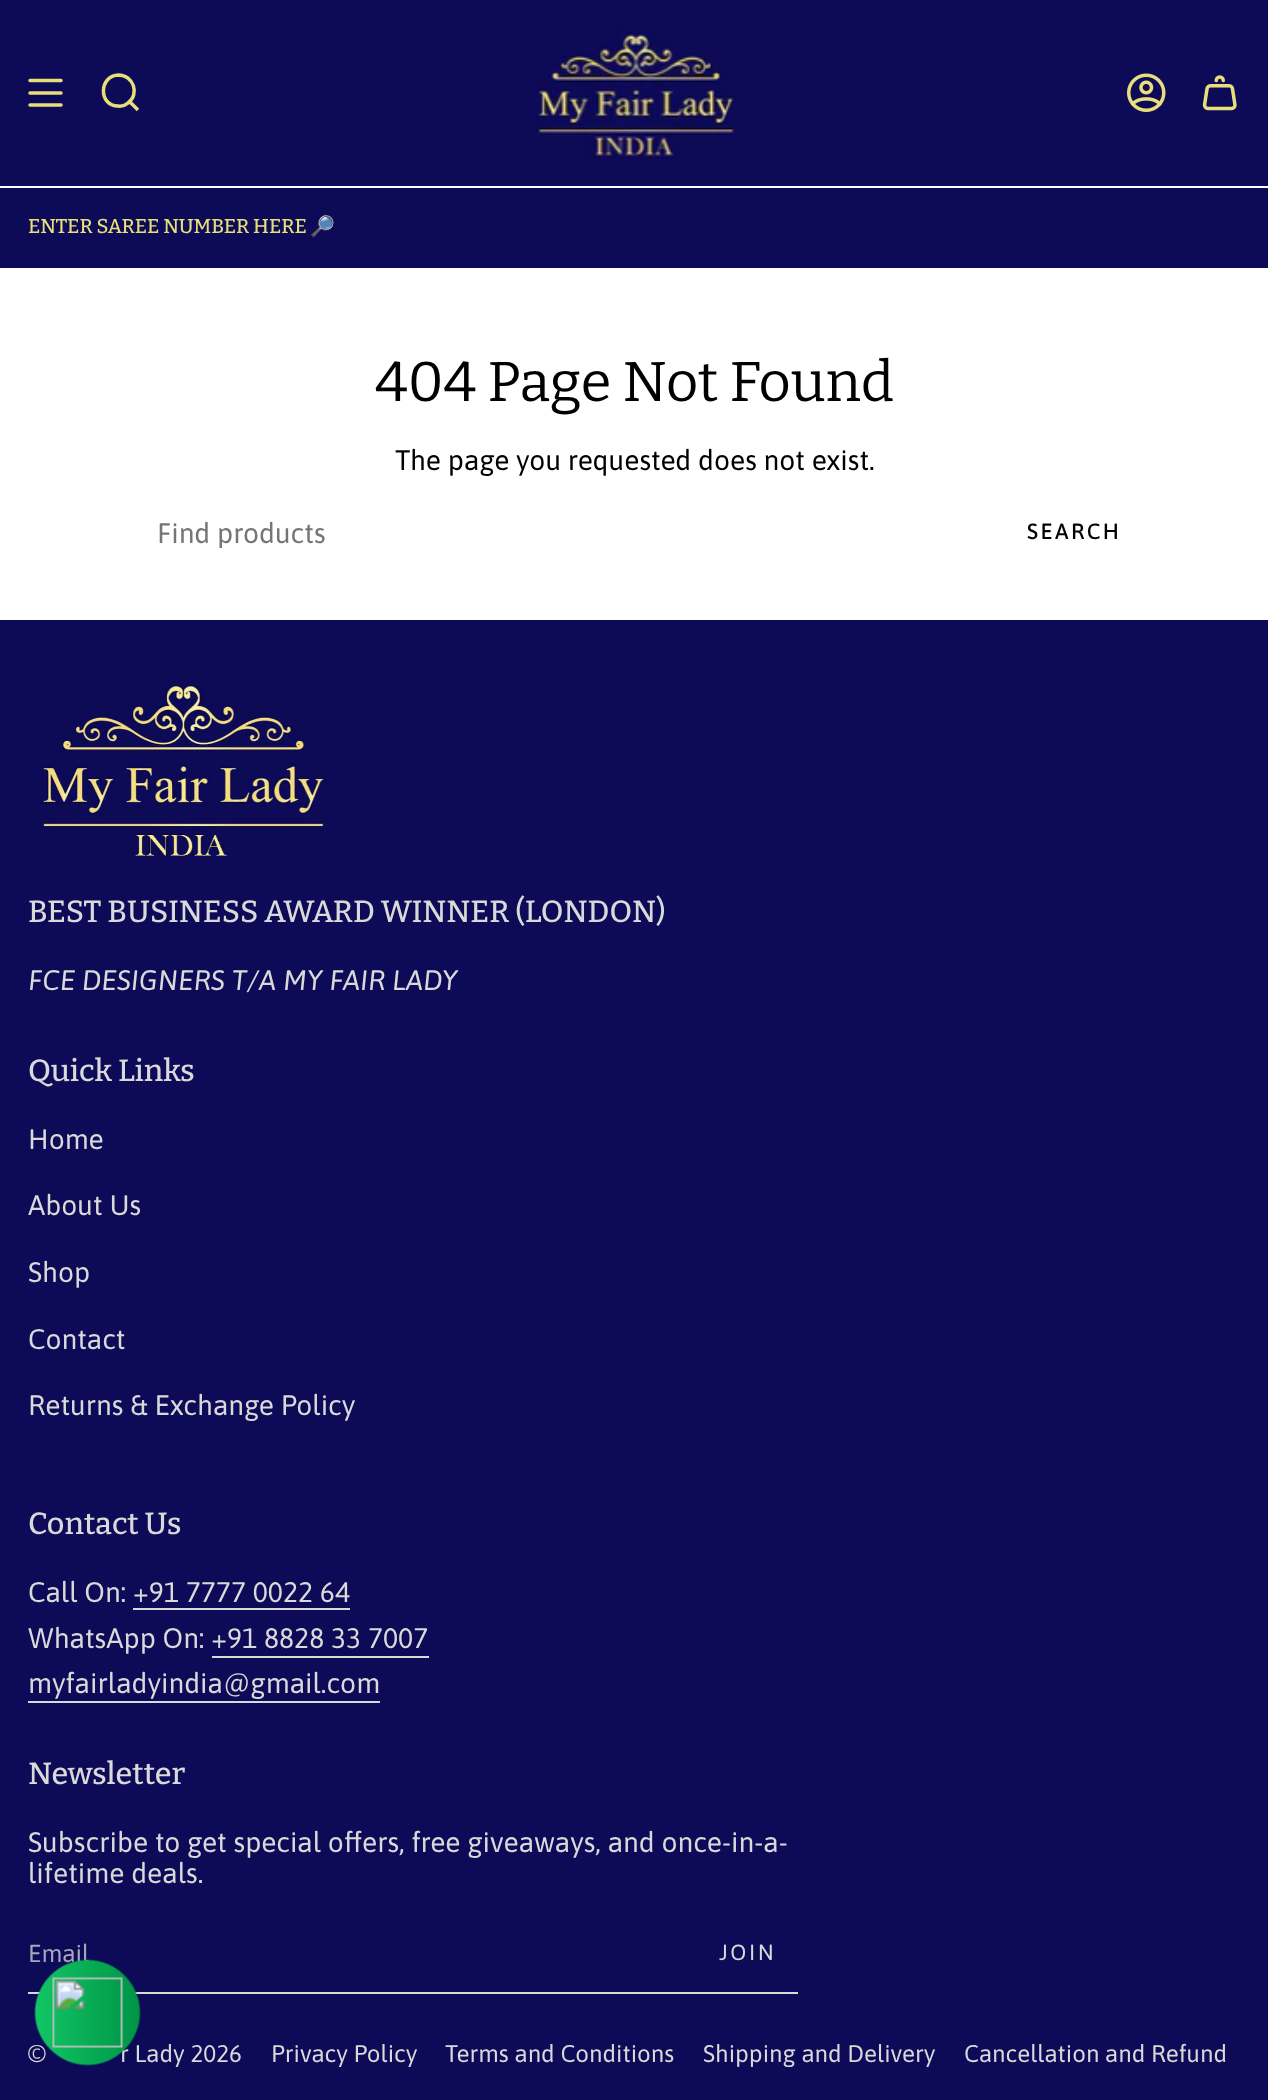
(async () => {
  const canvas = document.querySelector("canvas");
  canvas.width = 1268;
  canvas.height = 2100;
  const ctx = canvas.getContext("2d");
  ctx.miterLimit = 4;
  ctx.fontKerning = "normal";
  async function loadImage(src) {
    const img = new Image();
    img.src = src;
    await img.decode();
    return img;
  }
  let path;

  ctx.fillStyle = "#ffffff";
  ctx.fillRect(0, 0, 1268, 2100);
  ctx.fillStyle = "#0d0a57";
  ctx.fillRect(0, 0, 1268, 268);
  path = new Path2D("M30 80.5H61M30 93H61M30 105H61");
  ctx.strokeStyle = "#e8df7b";
  ctx.lineWidth = 3.5;
  ctx.lineCap = "round";
  ctx.lineJoin = "round";
  ctx.stroke(path);
  path = new Path2D("M118.5 75C133.5 75 140 94.5 128 103C125 105.5 121.5 106.5 118 106C98 105.5 99 75.5 118.5 75ZM129.5 101.5L138 110");
  ctx.lineCap = "butt";
  ctx.lineJoin = "miter";
  ctx.stroke(path);
  ctx.drawImage(await loadImage("img/1.png"), 530, 26, 210, 134);
  ctx.drawImage(await loadImage("img/2.png"), 1127, 73, 39, 39);
  ctx.drawImage(await loadImage("img/3.png"), 1202, 75, 35, 36);
  ctx.fillStyle = "#ffffff";
  ctx.fillRect(0, 186, 1268, 2);
  ctx.fillStyle = "#0d0a57";
  ctx.fillRect(0, 620, 1268, 1480);
  ctx.drawImage(await loadImage("img/4.png"), 28, 672, 306, 187);
  for (const [x, y, w, h, color] of [
    [133, 1608, 217, 2, "#d9d9d9"],
    [212, 1656, 217, 2, "#d9d9d9"],
    [28, 1701, 352, 2, "#d9d9d9"],
    [28, 1992, 770, 2, "#d9d9d9"],
  ]) {
    ctx.fillStyle = color;
    ctx.fillRect(x, y, w, h);
  }
  ctx.font = "500 20px Bitter";
  ctx.fillStyle = "#e8df7b";
  ctx.fillText("ENTER SAREE NUMBER HERE", 28, 233);
  ctx.font = "20px Noto Color Emoji";
  ctx.fillText("🔎", 310, 233);
  ctx.font = "56px Bitter";
  ctx.fillStyle = "#000000";
  ctx.fillText("404 Page Not Found", 375, 401);
  ctx.font = "28.2px Asap";
  ctx.fillText("The page you requested does not exist.", 395, 470);
  ctx.save();
  ctx.beginPath();
  ctx.rect(158, 516, 955, 32);
  ctx.clip();
  ctx.fillStyle = "#757575";
  ctx.fillText("Find products", 157, 543);
  ctx.restore();
  ctx.letterSpacing = "2.5px";
  ctx.font = "500 22px Asap";
  ctx.fillText("SEARCH", 1027, 539);
  ctx.letterSpacing = "0px";
  ctx.font = "500 30.6px Bitter";
  ctx.fillStyle = "#d9d9d9";
  ctx.fillText("BEST BUSINESS AWARD WINNER (LONDON)", 28, 922);
  ctx.font = "italic 28.2px Asap";
  ctx.fillText("FCE DESIGNERS T/A MY FAIR LADY", 28, 990);
  ctx.font = "500 30.6px Bitter";
  ctx.fillText("Quick Links", 28, 1081);
  ctx.font = "28.2px Asap";
  for (const [text, x, y] of [
    ["Home", 28, 1149],
    ["About Us", 28, 1215],
    ["Shop", 28, 1282],
    ["Contact", 28, 1349],
    ["Returns & Exchange Policy", 28, 1415],
  ]) {
    ctx.fillText(text, x, y);
  }
  ctx.font = "500 30.6px Bitter";
  ctx.fillText("Contact Us", 28, 1534);
  ctx.font = "28.2px Asap";
  for (const [text, x, y] of [
    ["Call On: +91 7777 0022 64", 28, 1602],
    ["WhatsApp On: +91 8828 33 7007", 28, 1648],
    ["myfairladyindia@gmail.com", 28, 1693],
  ]) {
    ctx.fillText(text, x, y);
  }
  ctx.font = "500 30.6px Bitter";
  ctx.fillText("Newsletter", 28, 1784);
  ctx.font = "28.2px Asap";
  ctx.fillText("Subscribe to get special offers, free giveaways, and once-in-a-", 28, 1852);
  ctx.fillText("lifetime deals.", 28, 1883);
  ctx.font = "24.5px Asap";
  ctx.fillStyle = "#a6a5b9";
  ctx.fillText("Email", 28, 1962);
  ctx.letterSpacing = "2.5px";
  ctx.font = "22px Asap";
  ctx.fillStyle = "#d9d9d9";
  ctx.fillText("JOIN", 719, 1960);
  ctx.letterSpacing = "0px";
  ctx.font = "24.1px Asap";
  for (const [text, x, y] of [
    ["©", 28, 2062],
    ["r Lady 2026", 120, 2062],
    ["Privacy Policy", 271, 2062],
    ["Terms and Conditions", 445, 2062],
    ["Shipping and Delivery", 703, 2062],
    ["Cancellation and Refund", 964, 2062],
  ]) {
    ctx.fillText(text, x, y);
  }
  ctx.drawImage(await loadImage("img/5.png"), 34, 1959, 107, 107);
})();
